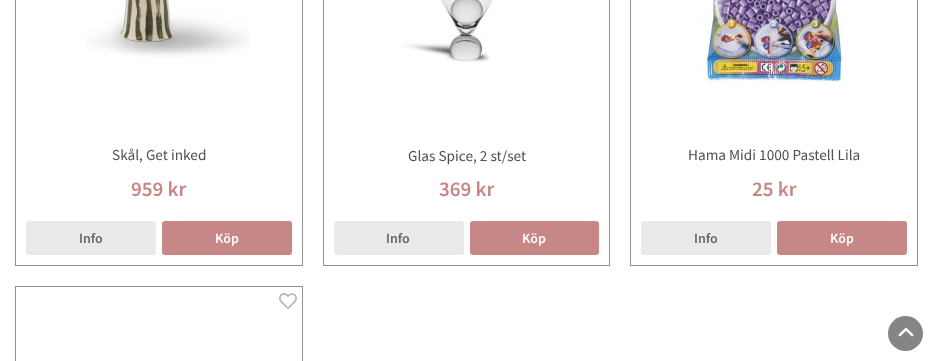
(async () => {
  const canvas = document.querySelector("canvas");
  canvas.width = 933;
  canvas.height = 361;
  const ctx = canvas.getContext("2d");
  ctx.miterLimit = 4;
  ctx.fontKerning = "normal";
  async function loadImage(src) {
    const img = new Image();
    img.src = src;
    await img.decode();
    return img;
  }

  ctx.fillStyle = "#ffffff";
  ctx.fillRect(0, 0, 933, 361);
  ctx.strokeStyle = "#919191";
  ctx.strokeRect(15.5, -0.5, 287, 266);
  ctx.drawImage(await loadImage("img/1.png"), 86, 0, 164, 58);
  ctx.fillStyle = "#eaeaea";
  ctx.beginPath();
  ctx.roundRect(26, 221, 130, 34, 3);
  ctx.fill();
  ctx.fillStyle = "#c78787";
  ctx.beginPath();
  ctx.roundRect(162, 221, 130, 34, 3);
  ctx.fill();
  ctx.strokeRect(323.5, -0.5, 286, 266);
  ctx.drawImage(await loadImage("img/2.png"), 403, 0, 91, 62);
  ctx.fillStyle = "#eaeaea";
  ctx.beginPath();
  ctx.roundRect(334, 221, 130, 34, 3);
  ctx.fill();
  ctx.fillStyle = "#c78787";
  ctx.beginPath();
  ctx.roundRect(470, 221, 129, 34, 3);
  ctx.fill();
  ctx.strokeRect(630.5, -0.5, 287, 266);
  ctx.drawImage(await loadImage("img/3.png"), 699, 0, 144, 84);
  ctx.fillStyle = "#eaeaea";
  ctx.beginPath();
  ctx.roundRect(641, 221, 130, 34, 3);
  ctx.fill();
  ctx.fillStyle = "#c78787";
  ctx.beginPath();
  ctx.roundRect(777, 221, 130, 34, 3);
  ctx.fill();
  ctx.strokeRect(15.5, 286.5, 287, 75);
  ctx.drawImage(await loadImage("img/4.png"), 279, 293, 18, 16);
  ctx.fillStyle = "#858585";
  ctx.beginPath();
  ctx.arc(905.5, 333.5, 17.5, 0, Math.PI * 2);
  ctx.fill();
  ctx.drawImage(await loadImage("img/5.png"), 898, 327, 16, 10);
  ctx.font = "15.25px Source Sans Pro";
  ctx.fillStyle = "#505050";
  ctx.fillText("Skål, Get inked", 112, 160);
  ctx.font = "600 21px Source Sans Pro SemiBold";
  ctx.fillStyle = "#c78787";
  ctx.fillText("959 kr", 131, 196);
  ctx.font = "600 14px Source Sans Pro SemiBold";
  ctx.fillStyle = "#666666";
  ctx.fillText("Info", 79, 243);
  ctx.fillStyle = "#ffffff";
  ctx.fillText("Köp", 215, 243);
  ctx.font = "15.25px Source Sans Pro";
  ctx.fillStyle = "#505050";
  ctx.fillText("Glas Spice, 2 st/set", 408, 161);
  ctx.font = "600 21px Source Sans Pro SemiBold";
  ctx.fillStyle = "#c78787";
  ctx.fillText("369 kr", 439, 196);
  ctx.font = "600 14px Source Sans Pro SemiBold";
  ctx.fillStyle = "#666666";
  ctx.fillText("Info", 386, 243);
  ctx.fillStyle = "#ffffff";
  ctx.fillText("Köp", 522, 243);
  ctx.font = "15.25px Source Sans Pro";
  ctx.fillStyle = "#505050";
  ctx.fillText("Hama Midi 1000 Pastell Lila", 688, 160);
  ctx.font = "600 21px Source Sans Pro SemiBold";
  ctx.fillStyle = "#c78787";
  ctx.fillText("25 kr", 752, 196);
  ctx.font = "600 14px Source Sans Pro SemiBold";
  ctx.fillStyle = "#666666";
  ctx.fillText("Info", 694, 243);
  ctx.fillStyle = "#ffffff";
  ctx.fillText("Köp", 830, 243);
})();
